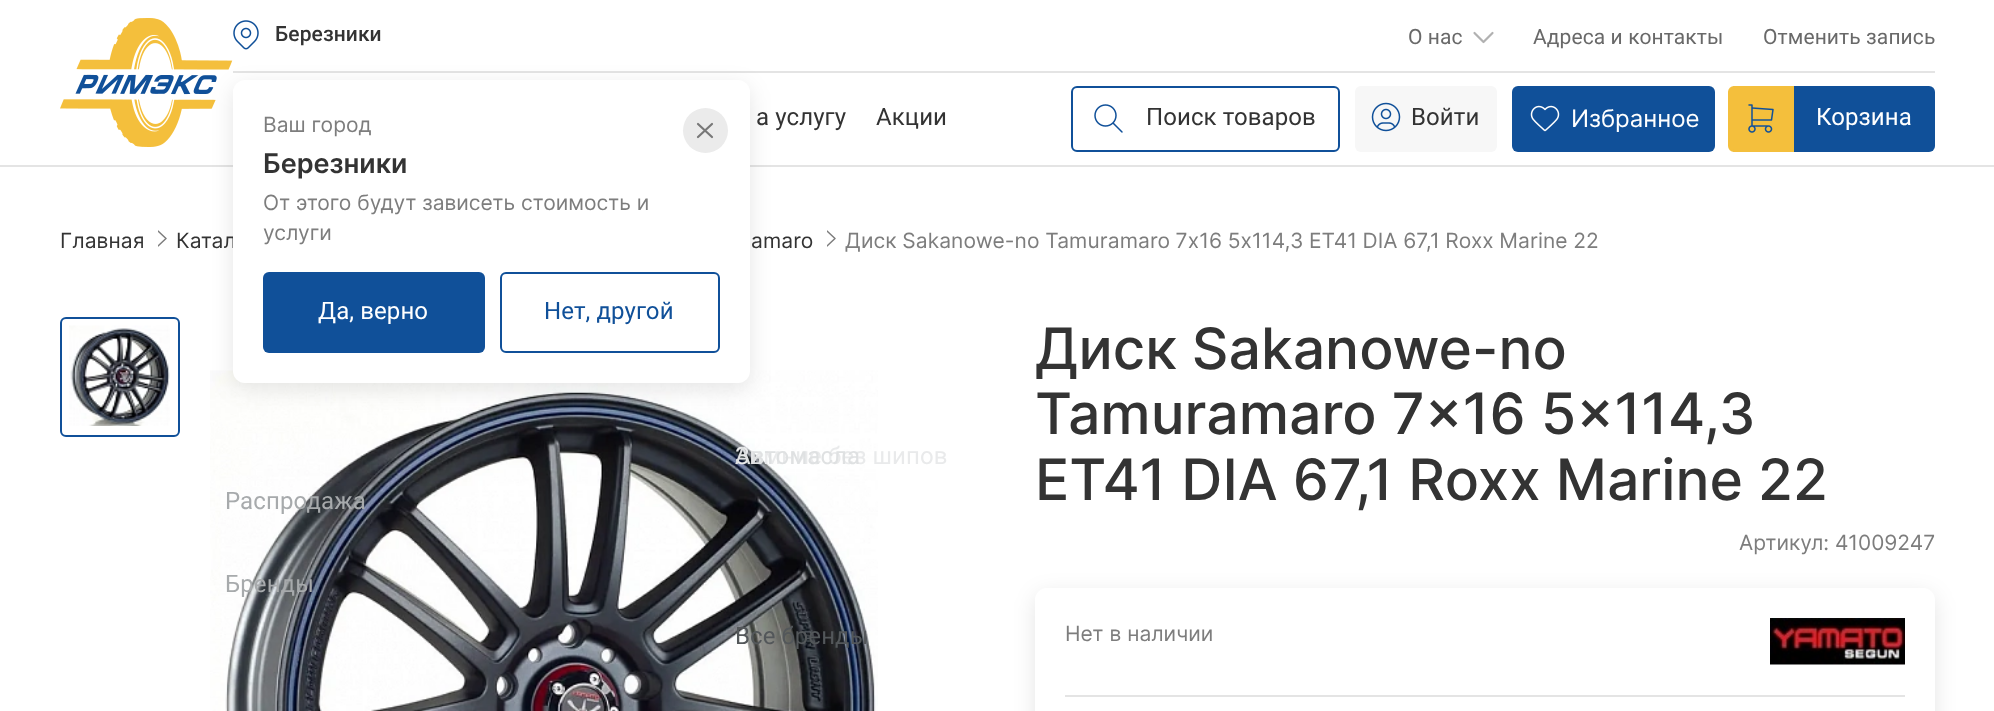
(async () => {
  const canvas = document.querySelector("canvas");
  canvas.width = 1994;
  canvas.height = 711;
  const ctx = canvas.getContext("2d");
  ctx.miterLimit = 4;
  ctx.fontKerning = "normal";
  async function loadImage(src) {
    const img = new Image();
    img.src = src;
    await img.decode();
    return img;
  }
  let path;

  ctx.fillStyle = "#ffffff";
  ctx.fillRect(0, 0, 1994, 711);
  ctx.fillStyle = "#e4e4e4";
  ctx.fillRect(0, 165, 1994, 2);
  ctx.drawImage(await loadImage("img/1.png"), 60, 18, 173, 129);
  ctx.fillRect(233, 71, 1702, 2);
  ctx.drawImage(await loadImage("img/2.png"), 233, 20, 26, 30);
  ctx.drawImage(await loadImage("img/8.png"), 210, 370, 668, 341);
  ctx.fillStyle = "rgba(0, 0, 0, 0.1)";
  ctx.filter = "blur(11px)";
  ctx.beginPath();
  ctx.roundRect(233, 86, 517, 303, 12);
  ctx.fill();
  ctx.filter = "none";
  path = new Path2D("M1492.5 33L1483.5 42L1474.5 33");
  ctx.strokeStyle = "#b1b1b1";
  ctx.lineWidth = 2.2;
  ctx.lineCap = "round";
  ctx.lineJoin = "round";
  ctx.stroke(path);
  ctx.beginPath();
  ctx.roundRect(1072, 87, 267, 64, 5);
  ctx.strokeStyle = "#105099";
  ctx.lineWidth = 2;
  ctx.lineJoin = "miter";
  ctx.stroke();
  ctx.drawImage(await loadImage("img/3.png"), 1094, 104, 29, 29);
  ctx.fillStyle = "#f7f7f7";
  ctx.beginPath();
  ctx.roundRect(1355, 86, 142, 66, 6);
  ctx.fill();
  ctx.drawImage(await loadImage("img/4.png"), 1371, 102, 30, 30);
  ctx.fillStyle = "#105099";
  ctx.beginPath();
  ctx.roundRect(1512, 86, 203, 66, 6);
  ctx.fill();
  ctx.drawImage(await loadImage("img/5.png"), 1530, 105, 30, 27);
  ctx.beginPath();
  ctx.roundRect(1730, 86, 205, 66, 6);
  ctx.fill();
  ctx.fillStyle = "#f4bf3c";
  ctx.beginPath();
  ctx.roundRect(1729, 87, 64, 64, [5, 0, 0, 5]);
  ctx.fill();
  ctx.strokeStyle = "#f4bf3c";
  ctx.stroke();
  ctx.drawImage(await loadImage("img/6.png"), 1748, 104, 26, 29);
  ctx.save();
  ctx.beginPath();
  ctx.rect(158, 230, 9, 18);
  ctx.clip();
  path = new Path2D("M158 231L166 238.5L158 246");
  ctx.strokeStyle = "#7d7d7d";
  ctx.lineWidth = 1.5;
  ctx.lineJoin = "round";
  ctx.stroke(path);
  ctx.restore();
  ctx.save();
  ctx.beginPath();
  ctx.rect(827, 230, 9, 18);
  ctx.clip();
  path = new Path2D("M827 231L835 238.5L827 246");
  ctx.strokeStyle = "#7d7d7d";
  ctx.lineWidth = 1.5;
  ctx.lineJoin = "round";
  ctx.stroke(path);
  ctx.restore();
  ctx.beginPath();
  ctx.roundRect(61, 318, 118, 118, 5);
  ctx.strokeStyle = "#105099";
  ctx.stroke();
  ctx.drawImage(await loadImage("img/7.png"), 69, 325, 101, 101);
  ctx.save();
  path = new Path2D("M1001 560H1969V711H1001ZM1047 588H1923C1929.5 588 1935 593.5 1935 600V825C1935 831.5 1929.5 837 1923 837H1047C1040.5 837 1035 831.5 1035 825V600C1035 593.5 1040.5 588 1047 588Z");
  ctx.clip(path, "evenodd");
  ctx.fillStyle = "rgba(0, 0, 0, 0.1)";
  ctx.filter = "blur(11px)";
  ctx.beginPath();
  ctx.roundRect(1035, 594, 900, 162, 12);
  ctx.fill();
  ctx.filter = "none";
  ctx.restore();
  ctx.drawImage(await loadImage("img/9.png"), 1770, 618, 135, 47);
  ctx.fillStyle = "#e4e4e4";
  ctx.fillRect(1065, 695, 840, 2);
  ctx.letterSpacing = "0.1px";
  ctx.font = "500 21px Roboto";
  ctx.fillStyle = "#333333";
  ctx.fillText("Березники", 275, 41);
  ctx.font = "21px Roboto";
  ctx.fillStyle = "#696969";
  for (const [text, x, y] of [
    ["О нас", 1408, 44],
    ["Адреса и контакты", 1533, 44],
    ["Отменить запись", 1763, 44],
  ]) {
    ctx.fillText(text, x, y);
  }
  ctx.font = "24px Roboto";
  ctx.fillStyle = "#333333";
  ctx.fillText("а услугу", 756, 125);
  ctx.fillText("Акции", 876, 125);
  ctx.fillStyle = "#e9eaeb";
  ctx.fillText("Зимние без шипов", 735, 464);
  ctx.fillStyle = "#dfe1e2";
  ctx.fillText("Автомасла", 735, 464);
  ctx.fillStyle = "#a7aaac";
  ctx.fillText("Распродажа", 225, 509);
  ctx.fillText("Бренды", 225, 592);
  ctx.fillStyle = "#53575a";
  ctx.fillText("Все бренды", 735, 644);
  ctx.fillStyle = "#333333";
  ctx.fillText("Поиск товаров", 1146, 125);
  ctx.fillText("Войти", 1411, 125);
  ctx.letterSpacing = "0px";
  ctx.font = "24px Inter";
  ctx.fillStyle = "#ffffff";
  ctx.fillText("Избранное", 1571, 127);
  ctx.letterSpacing = "0.1px";
  ctx.font = "24px Roboto";
  ctx.fillText("Корзина", 1816, 125);
  ctx.font = "21px Inter";
  ctx.fillStyle = "#333333";
  ctx.fillText("Главная", 60, 248);
  ctx.fillText("Катал", 176, 248);
  ctx.fillStyle = "#ffffff";
  ctx.beginPath();
  ctx.roundRect(233, 80, 517, 303, 12);
  ctx.fill();
  ctx.fillStyle = "#ebebeb";
  ctx.beginPath();
  ctx.arc(705.5, 130.5, 22.5, 0, Math.PI * 2);
  ctx.fill();
  path = new Path2D("M712 124L698 137M698 124L712 137");
  ctx.strokeStyle = "#787878";
  ctx.lineWidth = 2.2;
  ctx.lineJoin = "round";
  ctx.stroke(path);
  ctx.letterSpacing = "0px";
  ctx.fillStyle = "#7d7d7d";
  ctx.fillText("Ваш город", 263, 132);
  ctx.beginPath();
  ctx.roundRect(501, 273, 218, 79, 5);
  ctx.strokeStyle = "#105099";
  ctx.lineWidth = 2;
  ctx.lineJoin = "miter";
  ctx.stroke();
  ctx.letterSpacing = "0.1px";
  ctx.font = "24px Roboto";
  ctx.fillStyle = "#105099";
  ctx.fillText("Нет, другой", 544, 319);
  ctx.beginPath();
  ctx.roundRect(263, 272, 222, 81, 6);
  ctx.fill();
  ctx.fillStyle = "#ffffff";
  ctx.fillText("Да, верно", 318, 319);
  ctx.letterSpacing = "0px";
  ctx.font = "21px Inter";
  ctx.fillStyle = "#7d7d7d";
  ctx.fillText("услуги", 263, 240);
  ctx.fillText("От этого будут зависеть стоимость и", 263, 210);
  ctx.font = "600 27px Inter";
  ctx.fillStyle = "#333333";
  ctx.fillText("Березники", 263, 173);
  ctx.letterSpacing = "0.1px";
  ctx.font = "21px Inter";
  ctx.fillText("amaro", 751, 248);
  ctx.wordSpacing = "-0.5px";
  ctx.fillStyle = "#7d7d7d";
  ctx.fillText("Диск Sakanowe-no Tamuramaro 7x16 5x114,3 ET41 DIA 67,1 Roxx Marine 22", 845, 248);
  ctx.letterSpacing = "0px";
  ctx.wordSpacing = "0px";
  ctx.font = "500 57px Inter";
  ctx.fillStyle = "#333333";
  for (const [text, x, y] of [
    ["Диск Sakanowe-no", 1035, 369],
    ["Tamuramaro 7x16 5x114,3", 1035, 434],
    ["ET41 DIA 67,1 Roxx Marine 22", 1035, 500],
  ]) {
    ctx.fillText(text, x, y);
  }
  ctx.font = "21px Inter";
  ctx.fillStyle = "#7d7d7d";
  ctx.fillText("Артикул: 41009247", 1739, 550);
  ctx.fillText("Нет в наличии", 1065, 641);
})();
